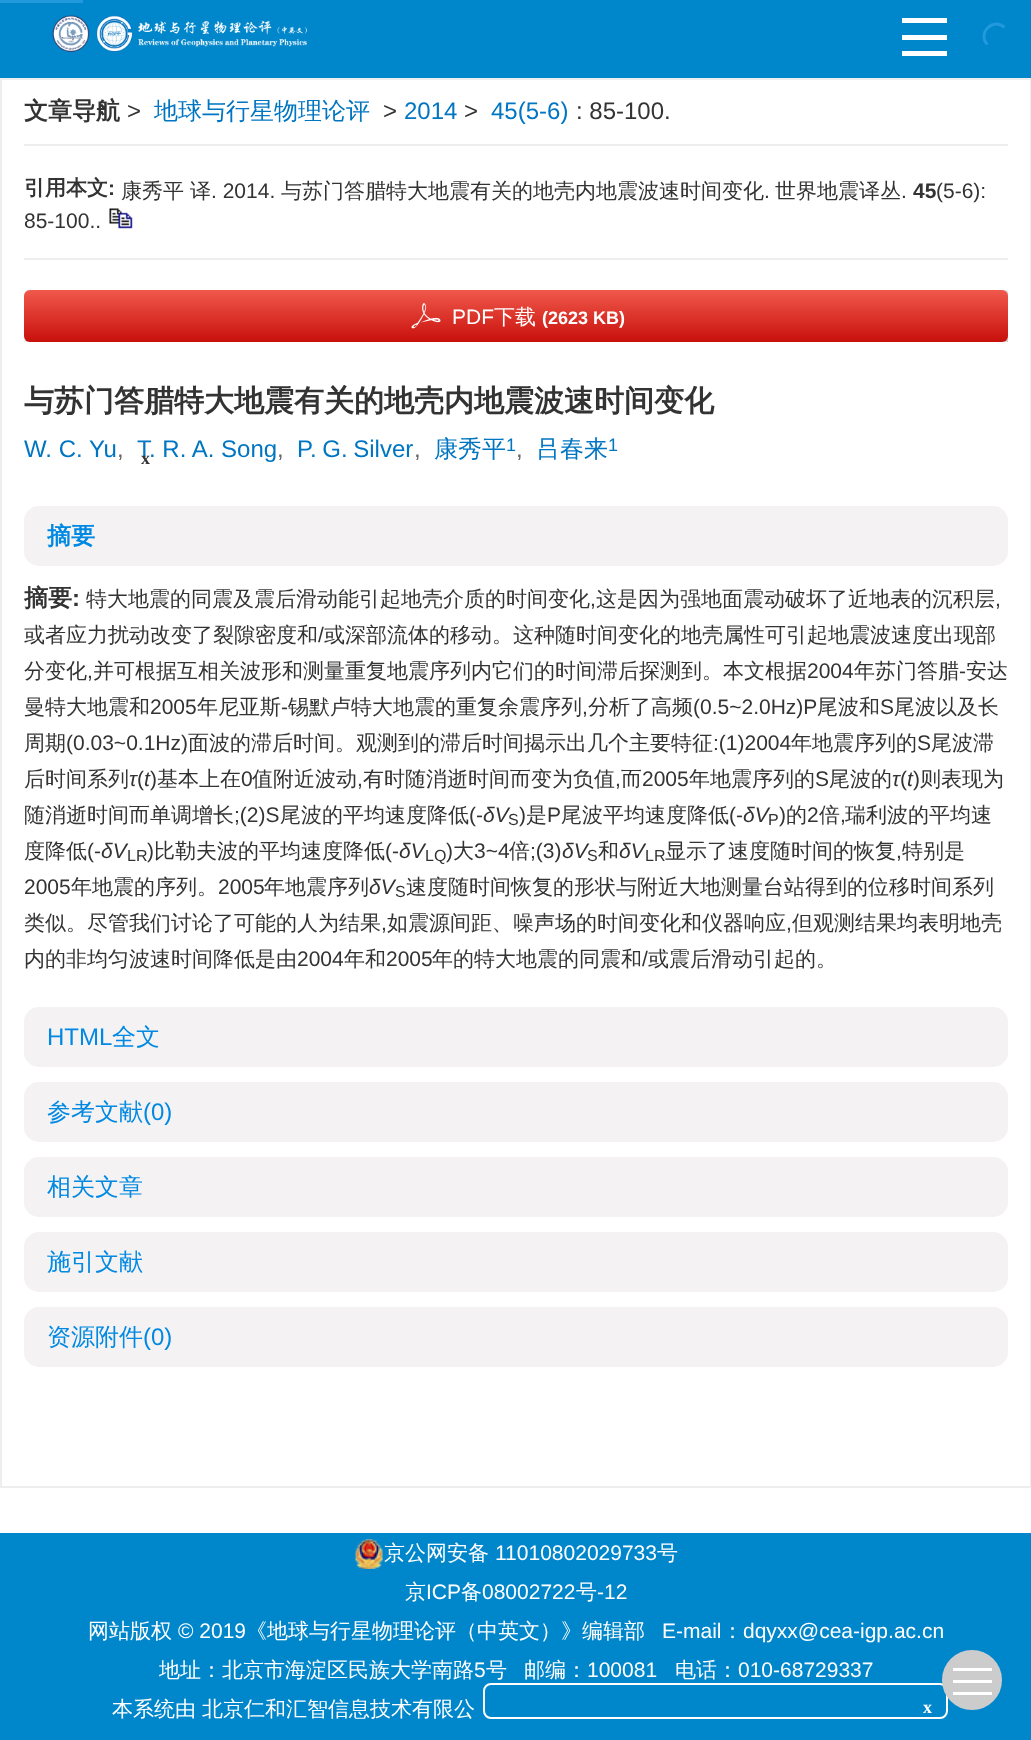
(async () => {
  const canvas = document.querySelector("canvas");
  canvas.width = 1031;
  canvas.height = 1740;
  const ctx = canvas.getContext("2d");
  ctx.miterLimit = 4;
  ctx.fontKerning = "normal";
  async function loadImage(src) {
    const img = new Image();
    img.src = src;
    await img.decode();
    return img;
  }
  let gradient, path;

  ctx.fillStyle = "#ffffff";
  ctx.fillRect(0, 0, 1031, 1740);
  ctx.fillStyle = "#0086cb";
  ctx.fillRect(0, 0, 1031, 78);
  ctx.drawImage(await loadImage("img/1.png"), 52, 15, 255, 37);
  for (const [x, y, w, h, color] of [
    [902, 18, 45, 5, "#ffffff"],
    [902, 35, 45, 5, "#ffffff"],
    [902, 51, 45, 5, "#ffffff"],
    [0, 0, 83, 3, "#2299dd"],
  ]) {
    ctx.fillStyle = color;
    ctx.fillRect(x, y, w, h);
  }
  path = new Path2D("M987.5 44.5C976.5 33.5 993.5 16.5 1004.5 27.5");
  ctx.strokeStyle = "#2299dd";
  ctx.lineWidth = 3;
  ctx.stroke(path);
  ctx.strokeStyle = "#eeeeee";
  ctx.lineWidth = 2;
  ctx.strokeRect(1, 79, 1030, 1408);
  ctx.fillStyle = "#eeeeee";
  ctx.fillRect(24, 144, 984, 2);
  ctx.fillRect(24, 258, 984, 2);
  ctx.drawImage(await loadImage("img/2.png"), 109, 208, 24, 21);
  ctx.save();
  ctx.beginPath();
  ctx.rect(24, 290, 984, 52);
  ctx.clip();
  ctx.fillStyle = "rgba(0, 0, 0, 0.2)";
  ctx.filter = "blur(1px)";
  ctx.beginPath();
  ctx.roundRect(24, 290, 987, 55, 8);
  ctx.fill();
  ctx.filter = "none";
  ctx.restore();
  gradient = ctx.createLinearGradient(516, 289, 516, 342);
  gradient.addColorStop(0, "#f15a4d");
  gradient.addColorStop(1, "#c8100b");
  ctx.fillStyle = gradient;
  ctx.beginPath();
  ctx.roundRect(24, 290, 984, 52, 6);
  ctx.fill();
  ctx.drawImage(await loadImage("img/3.png"), 411, 303, 30, 26);
  ctx.fillStyle = "#f4f2f2";
  ctx.beginPath();
  ctx.roundRect(24, 506, 984, 60, 15);
  ctx.fill();
  ctx.beginPath();
  ctx.roundRect(24, 1007, 984, 60, 15);
  ctx.fill();
  ctx.beginPath();
  ctx.roundRect(24, 1082, 984, 60, 15);
  ctx.fill();
  ctx.beginPath();
  ctx.roundRect(24, 1157, 984, 60, 15);
  ctx.fill();
  ctx.beginPath();
  ctx.roundRect(24, 1232, 984, 60, 15);
  ctx.fill();
  ctx.beginPath();
  ctx.roundRect(24, 1307, 984, 60, 15);
  ctx.fill();
  ctx.fillStyle = "#0086cb";
  ctx.fillRect(0, 1533, 1031, 207);
  ctx.beginPath();
  ctx.roundRect(484, 1684, 463, 34, 7);
  ctx.strokeStyle = "#ffffff";
  ctx.stroke();
  ctx.fillStyle = "#cccccc";
  ctx.beginPath();
  ctx.arc(972, 1680, 29, 0, Math.PI * 2);
  ctx.fill();
  ctx.strokeStyle = "#cccccc";
  ctx.stroke();
  for (const [x, y, w, h, color] of [
    [953, 1668, 39, 3, "#ffffff"],
    [953, 1680, 39, 3, "#ffffff"],
    [953, 1692, 39, 3, "#ffffff"],
  ]) {
    ctx.fillStyle = color;
    ctx.fillRect(x, y, w, h);
  }
  ctx.drawImage(await loadImage("img/4.png"), 355, 1539, 28, 30);
  ctx.font = "bold 24px WenQuanYi Zen Hei";
  ctx.fillStyle = "#333333";
  ctx.fillText("文章导航", 24, 119);
  ctx.font = "24px Liberation Sans";
  ctx.fillText(">", 127, 119);
  ctx.font = "500 24px WenQuanYi Zen Hei";
  ctx.fillStyle = "#0075c1";
  ctx.fillText("地球与行星物理论评", 154, 119);
  ctx.font = "24px Liberation Sans";
  ctx.fillStyle = "#333333";
  ctx.fillText(">", 383, 119);
  ctx.fillStyle = "#0075c1";
  ctx.fillText("2014", 404, 119);
  ctx.fillStyle = "#333333";
  ctx.fillText(">", 464, 119);
  ctx.fillStyle = "#0075c1";
  ctx.fillText("45(5-6)", 491, 119);
  ctx.fillStyle = "#333333";
  ctx.fillText(": 85-100.", 576, 119);
  ctx.font = "bold 21px WenQuanYi Zen Hei";
  ctx.fillText("引用本文", 24, 195);
  ctx.font = "500 21px WenQuanYi Zen Hei";
  ctx.fillText("康秀平", 121, 198);
  ctx.fillText("译", 190, 198);
  ctx.font = "21px Liberation Sans";
  ctx.fillText(". 2014.", 211, 198);
  ctx.font = "500 21px WenQuanYi Zen Hei";
  ctx.fillText("与苏门答腊特大地震有关的地壳内地震波速时间变化", 281, 198);
  ctx.font = "21px Liberation Sans";
  ctx.fillText(".", 764, 198);
  ctx.font = "500 21px WenQuanYi Zen Hei";
  ctx.fillText("世界地震译丛", 775, 198);
  ctx.font = "21px Liberation Sans";
  ctx.fillText(".", 901, 198);
  ctx.font = "bold 21px Liberation Sans";
  ctx.fillText("45", 913, 198);
  ctx.font = "21px Liberation Sans";
  ctx.fillText("(5-6):", 936, 198);
  ctx.fillText("85-100..", 24, 228);
  ctx.font = "bold 21px Liberation Sans";
  ctx.fillText(":", 108, 195);
  ctx.font = "21px Liberation Sans";
  ctx.fillStyle = "#ffffff";
  ctx.fillText("PDF", 452, 324);
  ctx.font = "500 21px WenQuanYi Zen Hei";
  ctx.fillText("下载", 494, 324);
  ctx.font = "bold 18px Liberation Sans";
  ctx.fillText("(2623 KB)", 542, 324);
  ctx.font = "bold 30px WenQuanYi Zen Hei";
  ctx.fillStyle = "#333333";
  ctx.fillText("与苏门答腊特大地震有关的地壳内地震波速时间变化", 24, 411);
  ctx.font = "24px Liberation Sans";
  ctx.fillStyle = "#0075c1";
  ctx.fillText("W. C. Yu", 24, 457);
  ctx.fillStyle = "#666666";
  ctx.fillText(",", 117, 457);
  ctx.fillStyle = "#0075c1";
  ctx.fillText("T. R. A. Song", 137, 457);
  ctx.fillStyle = "#666666";
  ctx.fillText(",", 277, 457);
  ctx.wordSpacing = "-1px";
  ctx.fillStyle = "#0075c1";
  ctx.fillText("P. G. Silver", 297, 457);
  ctx.wordSpacing = "0px";
  ctx.fillStyle = "#666666";
  ctx.fillText(",", 414, 457);
  ctx.font = "500 24px WenQuanYi Zen Hei";
  ctx.fillStyle = "#0075c1";
  ctx.fillText("康秀平", 434, 457);
  ctx.font = "18px Liberation Sans";
  ctx.fillText("1", 506, 451);
  ctx.font = "24px Liberation Sans";
  ctx.fillStyle = "#666666";
  ctx.fillText(",", 516, 457);
  ctx.font = "500 24px WenQuanYi Zen Hei";
  ctx.fillStyle = "#0075c1";
  ctx.fillText("吕春来", 536, 457);
  ctx.font = "18px Liberation Sans";
  ctx.fillText("1", 608, 451);
  ctx.font = "bold 24px WenQuanYi Zen Hei";
  ctx.fillStyle = "#0089e3";
  ctx.fillText("摘要", 47, 544);
  ctx.fillStyle = "#333333";
  ctx.fillText("摘要", 24, 606);
  ctx.font = "bold 24px Liberation Sans";
  ctx.fillText(":", 72, 606);
  ctx.font = "500 21px WenQuanYi Zen Hei";
  ctx.fillText("特大地震的同震及震后滑动能引起地壳介质的时间变化", 86, 606);
  ctx.font = "21px Liberation Sans";
  ctx.fillText(",", 590, 606);
  ctx.font = "500 21px WenQuanYi Zen Hei";
  ctx.fillText("这是因为强地面震动破坏了近地表的沉积层", 596, 606);
  ctx.font = "21px Liberation Sans";
  ctx.fillText(",", 995, 606);
  ctx.font = "500 21px WenQuanYi Zen Hei";
  ctx.fillText("或者应力扰动改变了裂隙密度和", 24, 642);
  ctx.font = "21px Liberation Sans";
  ctx.fillText("/", 318, 642);
  ctx.font = "500 21px WenQuanYi Zen Hei";
  for (const [text, x, y] of [
    ["或深部流体的移动。这种随时间变化的地壳属性可引起地震波速度出现部", 324, 642],
    ["分变化", 24, 678],
    ["并可根据互相关波形和测量重复地震序列内它们的时间滞后探测到。本文根据", 93, 678],
  ]) {
    ctx.fillText(text, x, y);
  }
  ctx.font = "21px Liberation Sans";
  ctx.fillText("2004", 807, 678);
  ctx.font = "500 21px WenQuanYi Zen Hei";
  ctx.fillText("年苏门答腊", 854, 678);
  ctx.font = "21px Liberation Sans";
  ctx.fillText("-", 959, 678);
  ctx.font = "500 21px WenQuanYi Zen Hei";
  ctx.fillText("安达", 966, 678);
  ctx.font = "21px Liberation Sans";
  ctx.fillText(",", 87, 678);
  ctx.font = "500 21px WenQuanYi Zen Hei";
  ctx.fillText("曼特大地震和", 24, 714);
  ctx.font = "21px Liberation Sans";
  ctx.fillText("2005", 150, 714);
  ctx.font = "500 21px WenQuanYi Zen Hei";
  ctx.fillText("年尼亚斯", 197, 714);
  ctx.font = "21px Liberation Sans";
  ctx.fillText("-", 281, 714);
  ctx.font = "500 21px WenQuanYi Zen Hei";
  ctx.fillText("锡默卢特大地震的重复余震序列", 288, 714);
  ctx.fillText("分析了高频", 588, 714);
  ctx.font = "21px Liberation Sans";
  ctx.fillText("(0.5~2.0Hz)P", 693, 714);
  ctx.font = "500 21px WenQuanYi Zen Hei";
  ctx.fillText("尾波和", 817, 714);
  ctx.font = "21px Liberation Sans";
  ctx.fillText("S", 880, 714);
  ctx.font = "500 21px WenQuanYi Zen Hei";
  ctx.fillText("尾波以及长", 894, 714);
  ctx.font = "21px Liberation Sans";
  ctx.fillText(",", 582, 714);
  ctx.font = "500 21px WenQuanYi Zen Hei";
  ctx.fillText("周期", 24, 750);
  ctx.font = "21px Liberation Sans";
  ctx.fillText("(0.03~0.1Hz)", 66, 750);
  ctx.font = "500 21px WenQuanYi Zen Hei";
  ctx.fillText("面波的滞后时间。观测到的滞后时间揭示出几个主要特征", 188, 750);
  ctx.font = "21px Liberation Sans";
  ctx.fillText(":(1)2004", 713, 750);
  ctx.font = "500 21px WenQuanYi Zen Hei";
  ctx.fillText("年地震序列的", 791, 750);
  ctx.font = "21px Liberation Sans";
  ctx.fillText("S", 917, 750);
  ctx.font = "500 21px WenQuanYi Zen Hei";
  ctx.fillText("尾波滞", 931, 750);
  ctx.fillText("后时间系列", 24, 786);
  ctx.font = "italic 21px Liberation Sans";
  ctx.fillText("τ", 129, 786);
  ctx.font = "21px Liberation Sans";
  ctx.fillText("(", 137, 786);
  ctx.font = "italic 21px Liberation Sans";
  ctx.fillText("t", 144, 786);
  ctx.font = "21px Liberation Sans";
  ctx.fillText(")", 150, 786);
  ctx.font = "500 21px WenQuanYi Zen Hei";
  ctx.fillText("基本上在", 157, 786);
  ctx.font = "21px Liberation Sans";
  ctx.fillText("0", 241, 786);
  ctx.font = "500 21px WenQuanYi Zen Hei";
  ctx.fillText("值附近波动", 252, 786);
  ctx.font = "21px Liberation Sans";
  ctx.fillText(",", 357, 786);
  ctx.font = "500 21px WenQuanYi Zen Hei";
  ctx.fillText("有时随消逝时间而变为负值", 363, 786);
  ctx.font = "21px Liberation Sans";
  ctx.fillText(",", 615, 786);
  ctx.font = "500 21px WenQuanYi Zen Hei";
  ctx.fillText("而", 621, 786);
  ctx.font = "21px Liberation Sans";
  ctx.fillText("2005", 642, 786);
  ctx.font = "500 21px WenQuanYi Zen Hei";
  ctx.fillText("年地震序列的", 689, 786);
  ctx.font = "21px Liberation Sans";
  ctx.fillText("S", 815, 786);
  ctx.font = "500 21px WenQuanYi Zen Hei";
  ctx.fillText("尾波的", 829, 786);
  ctx.font = "italic 21px Liberation Sans";
  ctx.fillText("τ", 892, 786);
  ctx.font = "21px Liberation Sans";
  ctx.fillText("(", 900, 786);
  ctx.font = "italic 21px Liberation Sans";
  ctx.fillText("t", 907, 786);
  ctx.font = "21px Liberation Sans";
  ctx.fillText(")", 913, 786);
  ctx.font = "500 21px WenQuanYi Zen Hei";
  ctx.fillText("则表现为", 920, 786);
  ctx.fillText("随消逝时间而单调增长", 24, 822);
  ctx.font = "21px Liberation Sans";
  ctx.fillText(";(2)S", 234, 822);
  ctx.font = "500 21px WenQuanYi Zen Hei";
  ctx.fillText("尾波的平均速度降低", 280, 822);
  ctx.font = "21px Liberation Sans";
  ctx.fillText("(-", 469, 822);
  ctx.font = "italic 21px Liberation Sans";
  ctx.fillText("δV", 483, 822);
  ctx.font = "16px Liberation Sans";
  ctx.fillText("S", 508, 825);
  ctx.font = "21px Liberation Sans";
  ctx.fillText(")", 519, 822);
  ctx.font = "500 21px WenQuanYi Zen Hei";
  ctx.fillText("是", 526, 822);
  ctx.font = "21px Liberation Sans";
  ctx.fillText("P", 547, 822);
  ctx.font = "500 21px WenQuanYi Zen Hei";
  ctx.fillText("尾波平均速度降低", 561, 822);
  ctx.font = "21px Liberation Sans";
  ctx.fillText("(-", 729, 822);
  ctx.font = "italic 21px Liberation Sans";
  ctx.fillText("δV", 743, 822);
  ctx.font = "16px Liberation Sans";
  ctx.fillText("P", 768, 825);
  ctx.font = "21px Liberation Sans";
  ctx.fillText(")", 779, 822);
  ctx.font = "500 21px WenQuanYi Zen Hei";
  ctx.fillText("的", 786, 822);
  ctx.font = "21px Liberation Sans";
  ctx.fillText("2", 807, 822);
  ctx.font = "500 21px WenQuanYi Zen Hei";
  ctx.fillText("倍", 819, 822);
  ctx.font = "21px Liberation Sans";
  ctx.fillText(",", 840, 822);
  ctx.font = "500 21px WenQuanYi Zen Hei";
  ctx.fillText("瑞利波的平均速", 845, 822);
  ctx.fillText("度降低", 24, 858);
  ctx.font = "21px Liberation Sans";
  ctx.fillText("(-", 87, 858);
  ctx.font = "italic 21px Liberation Sans";
  ctx.fillText("δV", 101, 858);
  ctx.font = "16px Liberation Sans";
  ctx.fillText("LR", 127, 861);
  ctx.font = "21px Liberation Sans";
  ctx.fillText(")", 147, 858);
  ctx.font = "500 21px WenQuanYi Zen Hei";
  ctx.fillText("比勒夫波的平均速度降低", 154, 858);
  ctx.font = "21px Liberation Sans";
  ctx.fillText("(-", 385, 858);
  ctx.font = "italic 21px Liberation Sans";
  ctx.fillText("δV", 399, 858);
  ctx.font = "16px Liberation Sans";
  ctx.fillText("LQ", 425, 861);
  ctx.font = "21px Liberation Sans";
  ctx.fillText(")", 446, 858);
  ctx.font = "500 21px WenQuanYi Zen Hei";
  ctx.fillText("大", 453, 858);
  ctx.font = "21px Liberation Sans";
  ctx.fillText("3~4", 474, 858);
  ctx.font = "500 21px WenQuanYi Zen Hei";
  ctx.fillText("倍", 509, 858);
  ctx.font = "21px Liberation Sans";
  ctx.fillText(";(3)", 530, 858);
  ctx.font = "italic 21px Liberation Sans";
  ctx.fillText("δV", 562, 858);
  ctx.font = "16px Liberation Sans";
  ctx.fillText("S", 587, 861);
  ctx.font = "500 21px WenQuanYi Zen Hei";
  ctx.fillText("和", 598, 858);
  ctx.font = "italic 21px Liberation Sans";
  ctx.fillText("δV", 619, 858);
  ctx.font = "16px Liberation Sans";
  ctx.fillText("LR", 645, 861);
  ctx.font = "500 21px WenQuanYi Zen Hei";
  ctx.fillText("显示了速度随时间的恢复", 665, 858);
  ctx.font = "21px Liberation Sans";
  ctx.fillText(",", 896, 858);
  ctx.font = "500 21px WenQuanYi Zen Hei";
  ctx.fillText("特别是", 902, 858);
  ctx.font = "21px Liberation Sans";
  ctx.fillText("2005", 24, 894);
  ctx.font = "500 21px WenQuanYi Zen Hei";
  ctx.fillText("年地震的序列。", 71, 894);
  ctx.font = "21px Liberation Sans";
  ctx.fillText("2005", 218, 894);
  ctx.font = "500 21px WenQuanYi Zen Hei";
  ctx.fillText("年地震序列", 264, 894);
  ctx.font = "italic 21px Liberation Sans";
  ctx.fillText("δV", 369, 894);
  ctx.font = "16px Liberation Sans";
  ctx.fillText("S", 395, 897);
  ctx.font = "500 21px WenQuanYi Zen Hei";
  ctx.fillText("速度随时间恢复的形状与附近大地测量台站得到的位移时间系列", 406, 894);
  ctx.fillText("类似。尽管我们讨论了可能的人为结果", 24, 930);
  ctx.font = "21px Liberation Sans";
  ctx.fillText(",", 381, 930);
  ctx.font = "500 21px WenQuanYi Zen Hei";
  ctx.fillText("如震源间距、噪声场的时间变化和仪器响应", 387, 930);
  ctx.font = "21px Liberation Sans";
  ctx.fillText(",", 786, 930);
  ctx.font = "500 21px WenQuanYi Zen Hei";
  ctx.fillText("但观测结果均表明地壳", 792, 930);
  ctx.fillText("内的非均匀波速时间降低是由", 24, 966);
  ctx.font = "21px Liberation Sans";
  ctx.fillText("2004", 297, 966);
  ctx.font = "500 21px WenQuanYi Zen Hei";
  ctx.fillText("年和", 344, 966);
  ctx.font = "21px Liberation Sans";
  ctx.fillText("2005", 386, 966);
  ctx.font = "500 21px WenQuanYi Zen Hei";
  ctx.fillText("年的特大地震的同震和", 432, 966);
  ctx.font = "21px Liberation Sans";
  ctx.fillText("/", 642, 966);
  ctx.font = "500 21px WenQuanYi Zen Hei";
  ctx.fillText("或震后滑动引起的。", 648, 966);
  ctx.font = "24px Liberation Sans";
  ctx.fillStyle = "#0089e3";
  ctx.fillText("HTML", 47, 1045);
  ctx.font = "500 24px WenQuanYi Zen Hei";
  ctx.fillText("全文", 112, 1045);
  ctx.fillText("参考文献", 47, 1120);
  ctx.font = "24px Liberation Sans";
  ctx.fillText("(0)", 143, 1120);
  ctx.font = "500 24px WenQuanYi Zen Hei";
  for (const [text, x, y] of [
    ["相关文章", 47, 1195],
    ["施引文献", 47, 1270],
    ["资源附件", 47, 1345],
  ]) {
    ctx.fillText(text, x, y);
  }
  ctx.font = "24px Liberation Sans";
  ctx.fillText("(0)", 143, 1345);
  ctx.font = "bold 18px Liberation Serif";
  ctx.fillStyle = "#333333";
  ctx.fillText("x", 141, 464);
  ctx.font = "500 21px WenQuanYi Zen Hei";
  ctx.fillStyle = "#ffffff";
  ctx.fillText("京公网安备", 384, 1560);
  ctx.font = "21px Liberation Sans";
  ctx.fillText("11010802029733", 495, 1560);
  ctx.font = "500 21px WenQuanYi Zen Hei";
  ctx.fillText("号", 657, 1560);
  ctx.fillText("京", 405, 1599);
  ctx.font = "21px Liberation Sans";
  ctx.fillText("ICP", 426, 1599);
  ctx.font = "500 21px WenQuanYi Zen Hei";
  ctx.fillText("备", 461, 1599);
  ctx.font = "21px Liberation Sans";
  ctx.fillText("08002722", 482, 1599);
  ctx.font = "500 21px WenQuanYi Zen Hei";
  ctx.fillText("号", 576, 1599);
  ctx.font = "21px Liberation Sans";
  ctx.fillText("-12", 597, 1599);
  ctx.font = "500 21px WenQuanYi Zen Hei";
  ctx.fillText("网站版权", 88, 1638);
  ctx.font = "21px Liberation Sans";
  ctx.fillText("© 2019", 178, 1638);
  ctx.font = "500 21px WenQuanYi Zen Hei";
  ctx.fillText("《地球与行星物理论评（中英文）》编辑部", 246, 1638);
  ctx.font = "21px Liberation Sans";
  ctx.fillText("E-mail", 662, 1638);
  ctx.font = "500 21px WenQuanYi Zen Hei";
  ctx.fillText("：", 722, 1638);
  ctx.font = "21px Liberation Sans";
  ctx.fillText("dqyxx@cea-igp.ac.cn", 743, 1638);
  ctx.font = "500 21px WenQuanYi Zen Hei";
  ctx.fillText("地址：北京市海淀区民族大学南路", 159, 1677);
  ctx.font = "21px Liberation Sans";
  ctx.fillText("5", 474, 1677);
  ctx.font = "500 21px WenQuanYi Zen Hei";
  ctx.fillText("号", 486, 1677);
  ctx.fillText("邮编：", 524, 1677);
  ctx.font = "21px Liberation Sans";
  ctx.fillText("100081", 587, 1677);
  ctx.font = "500 21px WenQuanYi Zen Hei";
  ctx.fillText("电话：", 675, 1677);
  ctx.font = "21px Liberation Sans";
  ctx.fillText("010-68729337", 738, 1677);
  ctx.font = "500 21px WenQuanYi Zen Hei";
  ctx.fillText("本系统由", 112, 1716);
  ctx.fillText("北京仁和汇智信息技术有限公", 202, 1716);
  ctx.font = "bold 18px Liberation Serif";
  ctx.fillText("x", 923, 1713);
})();
